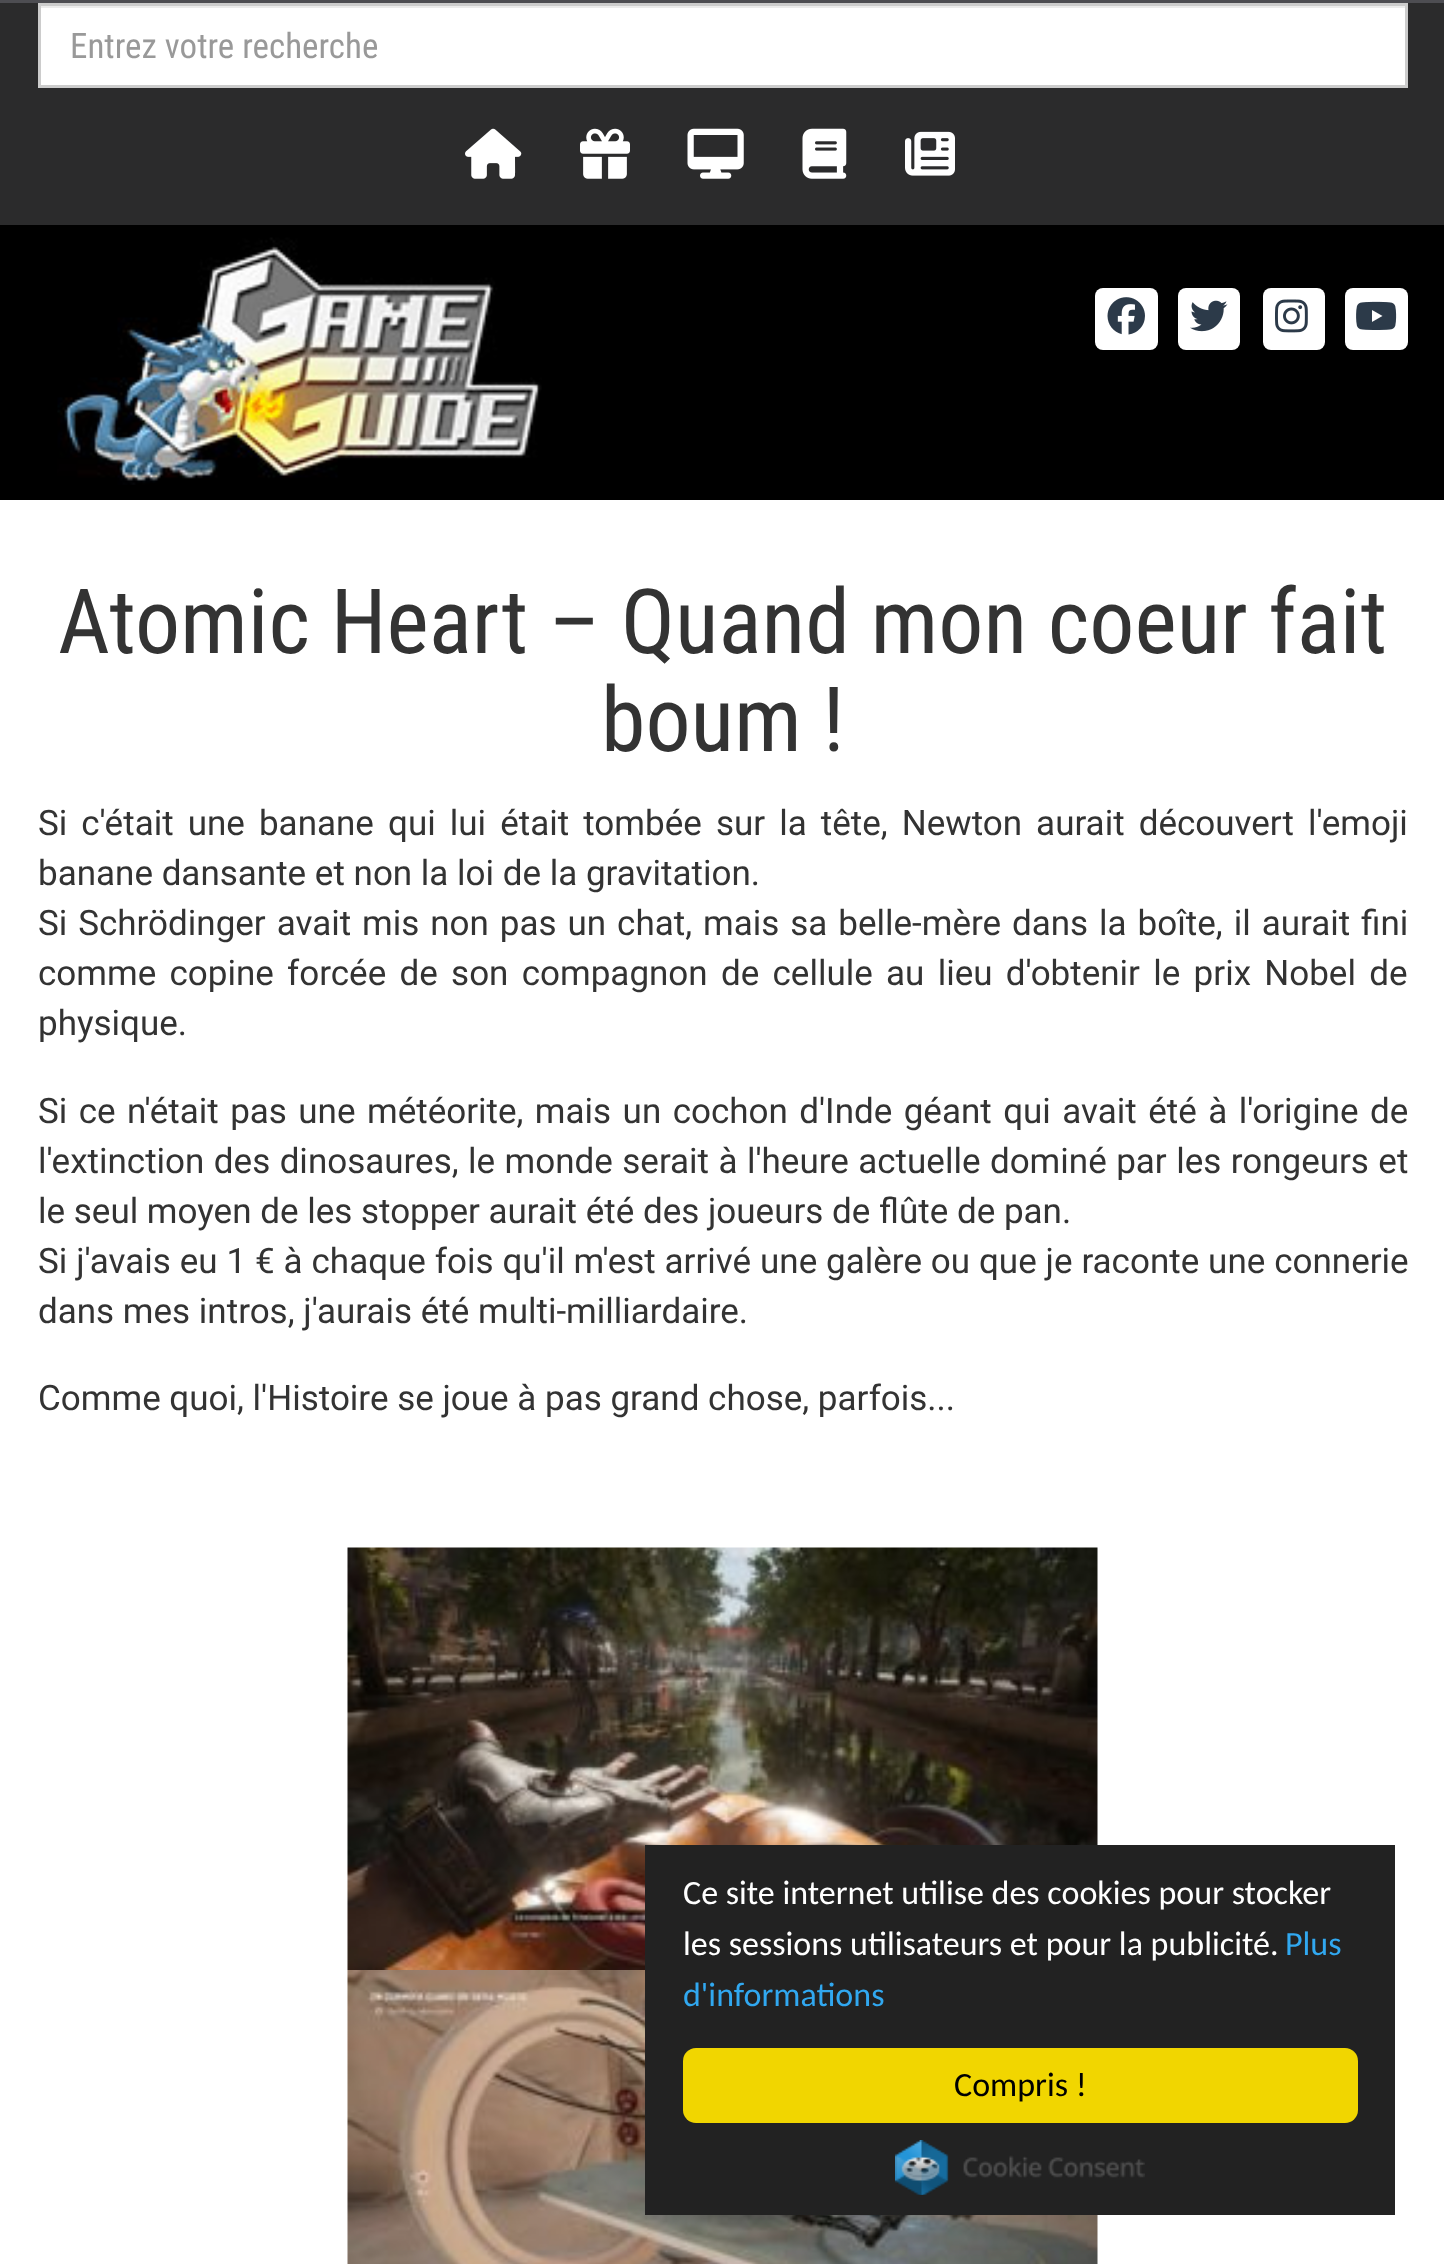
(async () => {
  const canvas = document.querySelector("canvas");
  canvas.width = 1444;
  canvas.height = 2264;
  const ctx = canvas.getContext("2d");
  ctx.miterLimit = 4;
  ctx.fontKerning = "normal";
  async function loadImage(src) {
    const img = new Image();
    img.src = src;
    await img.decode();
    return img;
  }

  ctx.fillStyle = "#ffffff";
  ctx.fillRect(0, 0, 1444, 2264);
  for (const [x, y, w, h, color] of [
    [0, 3, 1444, 222, "#2b2b2c"],
    [0, 0, 1444, 3, "#4d4d52"],
    [41, 8, 1364, 77, "#ffffff"],
    [40, 6, 1365, 2, "#ececec"],
  ]) {
    ctx.fillStyle = color;
    ctx.fillRect(x, y, w, h);
  }
  ctx.strokeStyle = "#cccccc";
  ctx.lineWidth = 3;
  ctx.strokeRect(39.5, 4.5, 1367, 82);
  ctx.drawImage(await loadImage("img/1.png"), 465, 128, 57, 51);
  ctx.drawImage(await loadImage("img/2.png"), 580, 128, 50, 51);
  ctx.drawImage(await loadImage("img/3.png"), 687, 128, 57, 51);
  ctx.drawImage(await loadImage("img/4.png"), 802, 128, 45, 51);
  ctx.drawImage(await loadImage("img/5.png"), 905, 131, 50, 45);
  ctx.fillStyle = "#000000";
  ctx.fillRect(0, 225, 1444, 275);
  ctx.drawImage(await loadImage("img/6.png"), 57, 237, 485, 248);
  ctx.fillStyle = "#ffffff";
  ctx.beginPath();
  ctx.roundRect(1095, 288, 63, 62, 8);
  ctx.fill();
  ctx.drawImage(await loadImage("img/7.png"), 1107, 297, 38, 38);
  ctx.beginPath();
  ctx.roundRect(1178, 288, 62, 62, 8);
  ctx.fill();
  ctx.drawImage(await loadImage("img/8.png"), 1190, 300, 38, 32);
  ctx.beginPath();
  ctx.roundRect(1263, 288, 62, 62, 8);
  ctx.fill();
  ctx.drawImage(await loadImage("img/9.png"), 1275, 299, 33, 34);
  ctx.beginPath();
  ctx.roundRect(1345, 288, 63, 62, 8);
  ctx.fill();
  ctx.drawImage(await loadImage("img/10.png"), 1356, 301, 41, 29);
  ctx.drawImage(await loadImage("img/11.png"), 347, 1547, 751, 423);
  ctx.drawImage(await loadImage("img/12.png"), 347, 1970, 751, 294);
  ctx.fillStyle = "#222222";
  ctx.fillRect(645, 1845, 750, 370);
  ctx.fillStyle = "#f1d600";
  ctx.beginPath();
  ctx.roundRect(683, 2048, 675, 75, 13);
  ctx.fill();
  ctx.drawImage(await loadImage("img/13.png"), 895, 2140, 250, 55);
  ctx.font = "35px Roboto Condensed";
  ctx.fillStyle = "#999999";
  ctx.fillText("Entrez votre recherche", 70, 58);
  ctx.font = "90px Roboto Condensed";
  ctx.fillStyle = "#333333";
  ctx.fillText("Atomic Heart – Quand mon coeur fait", 58, 653);
  ctx.fillText("boum !", 601, 751);
  ctx.wordSpacing = "5.4px";
  ctx.font = "35px Roboto";
  ctx.fillText("Si c'était une banane qui lui était tombée sur la tête, Newton aurait découvert l'emoji", 38, 835);
  ctx.wordSpacing = "0px";
  ctx.fillText("banane dansante et non la loi de la gravitation.", 38, 885);
  ctx.wordSpacing = "2.25px";
  ctx.fillText("Si Schrödinger avait mis non pas un chat, mais sa belle-mère dans la boîte, il aurait fini", 38, 935);
  ctx.wordSpacing = "4.6px";
  ctx.fillText("comme copine forcée de son compagnon de cellule au lieu d'obtenir le prix Nobel de", 38, 985);
  ctx.wordSpacing = "0px";
  ctx.fillText("physique.", 38, 1035);
  ctx.wordSpacing = "2.75px";
  ctx.fillText("Si ce n'était pas une météorite, mais un cochon d'Inde géant qui avait été à l'origine de", 38, 1123);
  ctx.wordSpacing = "0.75px";
  ctx.fillText("l'extinction des dinosaures, le monde serait à l'heure actuelle dominé par les rongeurs et", 38, 1173);
  ctx.wordSpacing = "0px";
  ctx.fillText("le seul moyen de les stopper aurait été des joueurs de flûte de pan.", 38, 1223);
  ctx.wordSpacing = "0.2px";
  ctx.fillText("Si j'avais eu 1 € à chaque fois qu'il m'est arrivé une galère ou que je raconte une connerie", 38, 1273);
  ctx.wordSpacing = "0px";
  ctx.fillText("dans mes intros, j'aurais été multi-milliardaire.", 38, 1323);
  ctx.fillText("Comme quoi, l'Histoire se joue à pas grand chose, parfois...", 38, 1410);
  ctx.font = "34px Carlito";
  ctx.fillStyle = "#ffffff";
  ctx.fillText("Ce site internet utilise des cookies pour stocker", 683, 1904);
  ctx.fillText("les sessions utilisateurs et pour la publicité.", 683, 1955);
  ctx.fillStyle = "#31a8f0";
  ctx.fillText("Plus", 1285, 1955);
  ctx.fillText("d'informations", 683, 2006);
  ctx.fillStyle = "#000000";
  ctx.fillText("Compris !", 954, 2096);
})();
